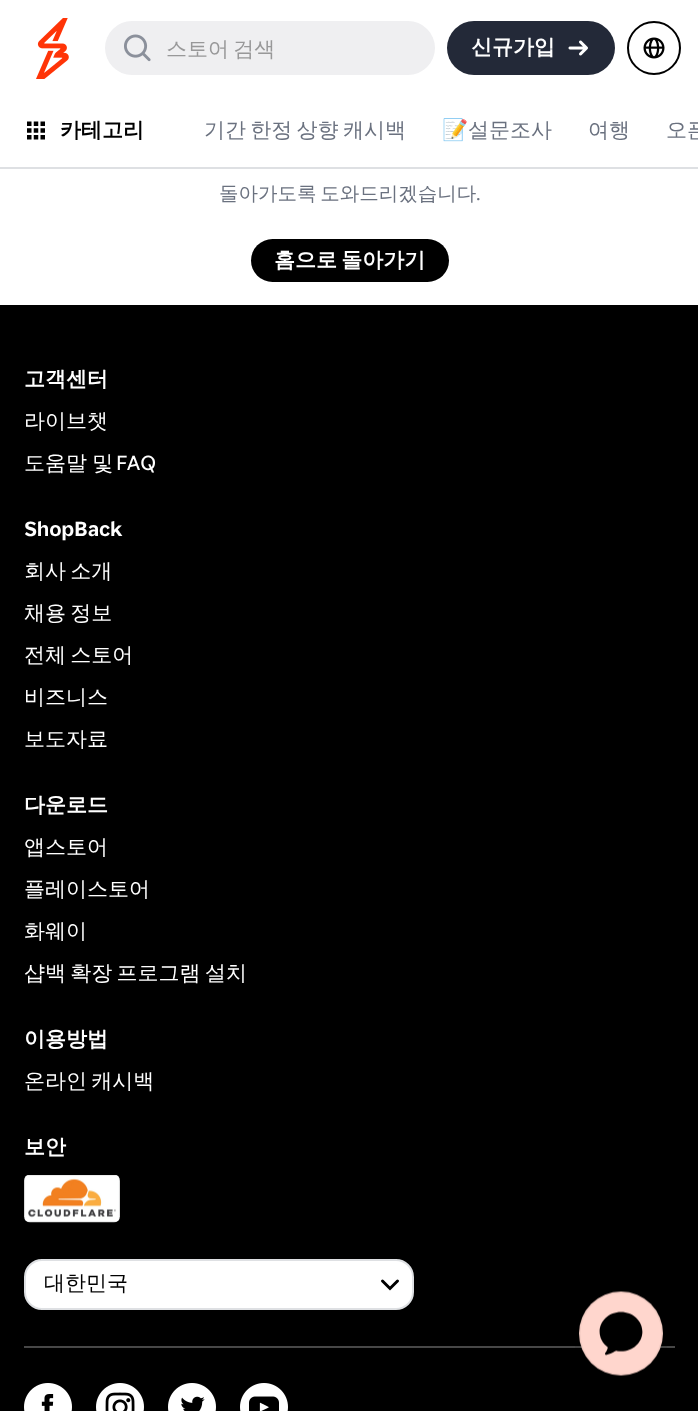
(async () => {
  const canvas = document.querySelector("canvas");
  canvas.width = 698;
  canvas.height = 1411;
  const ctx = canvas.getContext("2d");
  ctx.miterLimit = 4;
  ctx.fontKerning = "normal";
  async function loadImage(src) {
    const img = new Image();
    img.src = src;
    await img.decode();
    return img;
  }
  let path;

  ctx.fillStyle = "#ffffff";
  ctx.fillRect(0, 0, 698, 1411);
  ctx.drawImage(await loadImage("img/1.png"), 36, 18, 33, 61);
  ctx.fillStyle = "#efeff1";
  ctx.beginPath();
  ctx.roundRect(105, 21, 330, 54, 27);
  ctx.fill();
  ctx.drawImage(await loadImage("img/2.png"), 124, 34, 27, 28);
  ctx.fillStyle = "#232938";
  ctx.beginPath();
  ctx.roundRect(447, 21, 168, 54, 27);
  ctx.fill();
  ctx.drawImage(await loadImage("img/3.png"), 568, 40, 20, 16);
  ctx.beginPath();
  ctx.arc(654, 48, 26, 0, Math.PI * 2);
  ctx.strokeStyle = "#000000";
  ctx.lineWidth = 2;
  ctx.stroke();
  ctx.drawImage(await loadImage("img/4.png"), 643, 37, 22, 22);
  ctx.fillStyle = "#dee0e3";
  ctx.fillRect(0, 167, 698, 2);
  ctx.drawImage(await loadImage("img/5.png"), 27, 121, 18, 19);
  ctx.fillStyle = "#000000";
  ctx.beginPath();
  ctx.roundRect(251, 239, 198, 43, 21.5);
  ctx.fill();
  ctx.fillRect(0, 305, 698, 1106);
  ctx.drawImage(await loadImage("img/6.png"), 24, 1175, 96, 48);
  ctx.fillStyle = "#ffffff";
  ctx.beginPath();
  ctx.roundRect(25, 1260, 388, 49, 17);
  ctx.fill();
  ctx.strokeStyle = "#dee0e3";
  ctx.stroke();
  path = new Path2D("M382.5 1281L390 1288.5L397.5 1281");
  ctx.strokeStyle = "#000000";
  ctx.lineWidth = 3;
  ctx.lineCap = "round";
  ctx.stroke(path);
  ctx.fillStyle = "#474747";
  ctx.fillRect(24, 1346, 651, 2);
  ctx.drawImage(await loadImage("img/7.png"), 24, 1383, 48, 28);
  ctx.drawImage(await loadImage("img/8.png"), 96, 1383, 48, 28);
  ctx.drawImage(await loadImage("img/9.png"), 168, 1383, 48, 28);
  ctx.drawImage(await loadImage("img/10.png"), 240, 1383, 48, 28);
  ctx.drawImage(await loadImage("img/11.png"), 575, 1291, 92, 85);
  ctx.wordSpacing = "-2px";
  ctx.font = "500 21px WenQuanYi Zen Hei";
  ctx.fillStyle = "#989899";
  ctx.fillText("스토어 검색", 166, 56);
  ctx.wordSpacing = "0px";
  ctx.font = "bold 21px WenQuanYi Zen Hei";
  ctx.fillStyle = "#ffffff";
  ctx.fillText("신규가입", 471, 54);
  ctx.fillStyle = "#000000";
  ctx.fillText("카테고리", 60, 137);
  ctx.wordSpacing = "-2px";
  ctx.font = "500 21px WenQuanYi Zen Hei";
  ctx.fillStyle = "#6a717f";
  ctx.fillText("기간 한정 상향 캐시백", 204, 137);
  ctx.wordSpacing = "0px";
  ctx.font = "21px Noto Color Emoji";
  ctx.fillText("📝", 442, 137);
  ctx.font = "500 21px WenQuanYi Zen Hei";
  for (const [text, x, y] of [
    ["설문조사", 468, 137],
    ["여행", 588, 137],
    ["오픈", 666, 137],
  ]) {
    ctx.fillText(text, x, y);
  }
  ctx.wordSpacing = "-2px";
  ctx.font = "500 19.5px WenQuanYi Zen Hei";
  ctx.fillText("돌아가도록 도와드리겠습니다", 219, 200);
  ctx.wordSpacing = "0px";
  ctx.font = "19.5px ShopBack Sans";
  ctx.fillText(".", 476, 200);
  ctx.wordSpacing = "-2px";
  ctx.font = "bold 21px WenQuanYi Zen Hei";
  ctx.fillStyle = "#ffffff";
  ctx.fillText("홈으로 돌아가기", 274, 267);
  ctx.wordSpacing = "0px";
  ctx.fillText("고객센터", 24, 386);
  ctx.font = "500 21px WenQuanYi Zen Hei";
  ctx.fillText("라이브챗", 24, 428);
  ctx.wordSpacing = "-1px";
  ctx.fillText("도움말 및", 24, 470);
  ctx.wordSpacing = "0px";
  ctx.font = "21px ShopBack Sans";
  ctx.fillText("FAQ", 116, 470);
  ctx.font = "bold 21px ShopBack Sans";
  ctx.fillText("ShopBack", 24, 536);
  ctx.wordSpacing = "-2px";
  ctx.font = "500 21px WenQuanYi Zen Hei";
  for (const [text, x, y] of [
    ["회사 소개", 24, 578],
    ["채용 정보", 24, 620],
    ["전체 스토어", 24, 662],
  ]) {
    ctx.fillText(text, x, y);
  }
  ctx.wordSpacing = "0px";
  ctx.fillText("비즈니스", 24, 704);
  ctx.fillText("보도자료", 24, 746);
  ctx.font = "bold 21px WenQuanYi Zen Hei";
  ctx.fillText("다운로드", 24, 812);
  ctx.font = "500 21px WenQuanYi Zen Hei";
  for (const [text, x, y] of [
    ["앱스토어", 24, 854],
    ["플레이스토어", 24, 896],
    ["화웨이", 24, 938],
  ]) {
    ctx.fillText(text, x, y);
  }
  ctx.wordSpacing = "-2px";
  ctx.fillText("샵백 확장 프로그램 설치", 24, 980);
  ctx.wordSpacing = "0px";
  ctx.font = "bold 21px WenQuanYi Zen Hei";
  ctx.fillText("이용방법", 24, 1046);
  ctx.wordSpacing = "-2px";
  ctx.font = "500 21px WenQuanYi Zen Hei";
  ctx.fillText("온라인 캐시백", 24, 1088);
  ctx.wordSpacing = "0px";
  ctx.font = "bold 21px WenQuanYi Zen Hei";
  ctx.fillText("보안", 24, 1154);
  ctx.font = "500 21px WenQuanYi Zen Hei";
  ctx.fillStyle = "#000000";
  ctx.fillText("대한민국", 44, 1290);
})();
